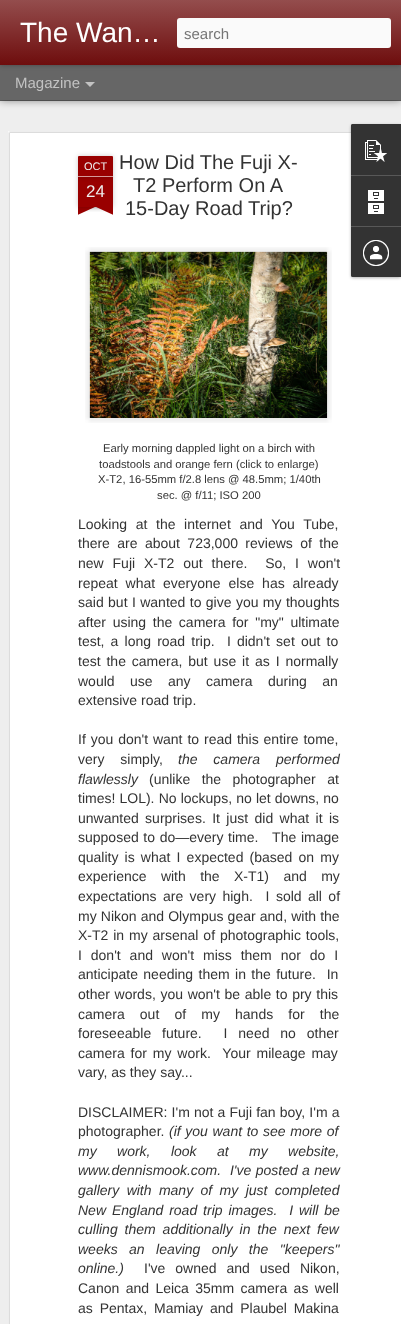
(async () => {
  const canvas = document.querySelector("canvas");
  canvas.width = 401;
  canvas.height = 1324;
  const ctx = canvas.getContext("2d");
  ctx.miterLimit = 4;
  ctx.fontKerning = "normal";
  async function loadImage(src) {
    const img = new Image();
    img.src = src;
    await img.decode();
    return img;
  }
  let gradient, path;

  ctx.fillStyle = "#666666";
  ctx.fillRect(0, 0, 401, 1324);
  ctx.fillStyle = "#eeeeee";
  ctx.fillRect(0, 101, 401, 1223);
  ctx.fillStyle = "rgba(0, 0, 0, 0.5)";
  ctx.filter = "blur(4px)";
  ctx.beginPath();
  ctx.rect(0, 65, 401, 35);
  ctx.fill();
  ctx.filter = "none";
  ctx.fillStyle = "#666666";
  ctx.fillRect(0, 65, 401, 35);
  ctx.fillStyle = "rgba(0, 0, 0, 0.3)";
  ctx.filter = "blur(2.5px)";
  ctx.beginPath();
  ctx.rect(0, 0, 401, 65);
  ctx.fill();
  ctx.filter = "none";
  gradient = ctx.createLinearGradient(0, 0, 0, 65);
  gradient.addColorStop(0, "#944d4d");
  gradient.addColorStop(1, "#6e0d0d");
  ctx.fillStyle = gradient;
  ctx.fillRect(0, 0, 401, 65);
  ctx.fillStyle = "#fafafa";
  ctx.beginPath();
  ctx.roundRect(177, 18, 214, 30, 3);
  ctx.fill();
  ctx.fillStyle = "#c2c2c2";
  path = new Path2D("M85 82H95L90 87Z");
  ctx.fill(path);
  ctx.fillStyle = "#ffffff";
  ctx.fillRect(8, 131, 393, 1193);
  ctx.drawImage(await loadImage("img/1.png"), 8, 131, 343, 1193);
  ctx.fillStyle = "rgba(0, 0, 0, 0.2)";
  ctx.filter = "blur(2.5px)";
  ctx.beginPath();
  ctx.rect(78, 177, 35, 30);
  ctx.fill();
  ctx.filter = "none";
  ctx.fillStyle = "#990000";
  ctx.fillRect(78, 177, 35, 30);
  ctx.fillStyle = "rgba(0, 0, 0, 0.2)";
  ctx.filter = "blur(2.5px)";
  ctx.beginPath();
  ctx.roundRect(78, 156, 35, 21, 1);
  ctx.fill();
  ctx.filter = "none";
  ctx.fillStyle = "#990000";
  ctx.beginPath();
  ctx.roundRect(78, 156, 35, 21, [1, 1, 0, 0]);
  ctx.fill();
  ctx.fillStyle = "#d69999";
  ctx.fillRect(78, 176, 35, 1);
  ctx.save();
  ctx.beginPath();
  ctx.rect(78, 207, 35, 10);
  ctx.clip();
  ctx.fillStyle = "rgba(0, 0, 0, 0.2)";
  ctx.filter = "blur(2.5px)";
  ctx.beginPath();
  ctx.rect(69, 197, 50, 10);
  ctx.fill();
  ctx.filter = "none";
  ctx.restore();
  ctx.save();
  ctx.beginPath();
  ctx.rect(78, 207, 35, 10);
  ctx.clip();
  ctx.fillStyle = "#990000";
  path = new Path2D("M69 208L115 187L119 196L73 217Z");
  ctx.fill(path);
  ctx.restore();
  ctx.save();
  ctx.beginPath();
  ctx.rect(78, 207, 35, 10);
  ctx.clip();
  ctx.fillStyle = "rgba(0, 0, 0, 0.2)";
  ctx.filter = "blur(2.5px)";
  ctx.beginPath();
  ctx.rect(72, 197, 50, 10);
  ctx.fill();
  ctx.filter = "none";
  ctx.restore();
  ctx.save();
  ctx.beginPath();
  ctx.rect(78, 207, 35, 10);
  ctx.clip();
  ctx.fillStyle = "#990000";
  path = new Path2D("M76 187L122 208L118 217L72 196Z");
  ctx.fill(path);
  ctx.restore();
  ctx.drawImage(await loadImage("img/2.png"), 85, 247, 247, 176);
  ctx.drawImage(await loadImage("img/3.png"), 89, 251, 239, 167);
  ctx.fillStyle = "rgba(0, 0, 0, 0.3)";
  ctx.filter = "blur(1.5px)";
  ctx.beginPath();
  ctx.roundRect(351, 125, 50, 153, 2);
  ctx.fill();
  ctx.filter = "none";
  ctx.fillStyle = "#333333";
  ctx.beginPath();
  ctx.roundRect(351, 124, 50, 153, [2, 0, 0, 2]);
  ctx.fill();
  ctx.beginPath();
  ctx.roundRect(351, 124, 50, 51, [2, 0, 0, 0]);
  ctx.fill();
  ctx.drawImage(await loadImage("img/4.png"), 365, 140, 22, 22);
  ctx.fillStyle = "#585858";
  ctx.fillRect(351, 175, 50, 1);
  ctx.drawImage(await loadImage("img/5.png"), 368, 190, 16, 24);
  ctx.fillStyle = "#333333";
  ctx.beginPath();
  ctx.roundRect(351, 226, 50, 51, [0, 0, 0, 2]);
  ctx.fill();
  ctx.fillStyle = "#585858";
  ctx.fillRect(351, 226, 50, 1);
  ctx.drawImage(await loadImage("img/6.png"), 363, 240, 26, 26);
  ctx.font = "28px Liberation Sans";
  ctx.fillStyle = "#ffffff";
  ctx.fillText("The Wan…", 20, 42);
  ctx.font = "15px Liberation Sans";
  ctx.fillStyle = "#757575";
  ctx.fillText("search", 184, 39);
  ctx.fillStyle = "#c2c2c2";
  ctx.fillText("Magazine", 15, 88);
  ctx.font = "11px Liberation Sans";
  ctx.fillStyle = "#eeeeee";
  ctx.fillText("OCT", 84, 170);
  ctx.font = "17px Liberation Sans";
  ctx.fillText("24", 86, 197);
  ctx.font = "20px Liberation Sans";
  ctx.fillStyle = "#333333";
  for (const [text, x, y] of [
    ["How Did The Fuji X-", 119, 169],
    ["T2 Perform On A", 133, 192],
    ["15-Day Road Trip?", 125, 215],
  ]) {
    ctx.fillText(text, x, y);
  }
  ctx.font = "11.25px Liberation Sans";
  for (const [text, x, y] of [
    ["Early morning dappled light on a birch with", 103, 452],
    ["toadstools and orange fern (click to enlarge)", 99, 468],
    ["X-T2, 16-55mm f/2.8 lens @ 48.5mm; 1/40th", 98, 483],
    ["sec. @ f/11; ISO 200", 157, 499],
  ]) {
    ctx.fillText(text, x, y);
  }
  ctx.wordSpacing = "4.75px";
  ctx.font = "14px Liberation Sans";
  ctx.fillText("Looking at the internet and You Tube,", 78, 529);
  ctx.wordSpacing = "3.5px";
  ctx.fillText("there are about 723,000 reviews of the", 78, 548);
  ctx.wordSpacing = "5px";
  ctx.fillText("new Fuji X-T2 out there.  So, I won't", 78, 568);
  ctx.wordSpacing = "4px";
  ctx.fillText("repeat what everyone else has already", 78, 588);
  ctx.wordSpacing = "0.5px";
  ctx.fillText("said but I wanted to give you my thoughts", 78, 607);
  ctx.wordSpacing = "2.75px";
  ctx.fillText("after using the camera for \"my\" ultimate", 78, 627);
  ctx.wordSpacing = "2.25px";
  ctx.fillText("test, a long road trip.  I didn't set out to", 78, 646);
  ctx.wordSpacing = "2px";
  ctx.fillText("test the camera, but use it as I normally", 78, 666);
  ctx.wordSpacing = "11.5px";
  ctx.fillText("would use any camera during an", 78, 686);
  ctx.wordSpacing = "0px";
  ctx.fillText("extensive road trip.", 78, 705);
  ctx.wordSpacing = "1px";
  ctx.fillText("If you don't want to read this entire tome,", 78, 744);
  ctx.wordSpacing = "12px";
  ctx.fillText("very simply,", 78, 764);
  ctx.font = "italic 14px Liberation Sans";
  ctx.fillText("the camera performed", 178, 764);
  ctx.wordSpacing = "0px";
  ctx.fillText("flawlessly", 78, 784);
  ctx.wordSpacing = "7.5px";
  ctx.font = "14px Liberation Sans";
  ctx.fillText("(unlike the photographer at", 149, 784);
  ctx.wordSpacing = "0.25px";
  ctx.fillText("times! LOL). No lockups, no let downs, no", 78, 803);
  ctx.wordSpacing = "2.5px";
  ctx.fillText("unwanted surprises. It just did what it is", 78, 823);
  ctx.wordSpacing = "0.75px";
  ctx.fillText("supposed to do—every time.   The image", 78, 842);
  ctx.wordSpacing = "2.25px";
  ctx.fillText("quality is what I expected (based on my", 78, 862);
  ctx.wordSpacing = "10.5px";
  ctx.fillText("experience with the X-T1) and my", 78, 881);
  ctx.wordSpacing = "2.5px";
  ctx.fillText("expectations are very high.  I sold all of", 78, 901);
  ctx.wordSpacing = "0.25px";
  ctx.fillText("my Nikon and Olympus gear and, with the", 78, 921);
  ctx.wordSpacing = "1px";
  ctx.fillText("X-T2 in my arsenal of photographic tools,", 78, 940);
  ctx.wordSpacing = "5px";
  ctx.fillText("I don't and won't miss them nor do I", 78, 960);
  ctx.wordSpacing = "1.5px";
  ctx.fillText("anticipate needing them in the future.  In", 78, 979);
  ctx.wordSpacing = "0.75px";
  ctx.fillText("other words, you won't be able to pry this", 78, 999);
  ctx.wordSpacing = "11.25px";
  ctx.fillText("camera out of my hands for the", 78, 1019);
  ctx.wordSpacing = "7px";
  ctx.fillText("foreseeable future.  I need no other", 78, 1038);
  ctx.wordSpacing = "2px";
  ctx.fillText("camera for my work.  Your mileage may", 78, 1058);
  ctx.wordSpacing = "0px";
  ctx.fillText("vary, as they say...", 78, 1077);
  ctx.wordSpacing = "0.25px";
  ctx.fillText("DISCLAIMER: I'm not a Fuji fan boy, I'm a", 78, 1117);
  ctx.wordSpacing = "0px";
  ctx.fillText("photographer.", 78, 1136);
  ctx.wordSpacing = "0.75px";
  ctx.font = "italic 14px Liberation Sans";
  ctx.fillText("(if you want to see more of", 169, 1136);
  ctx.wordSpacing = "16.5px";
  ctx.fillText("my work, look at my website,", 78, 1156);
  ctx.wordSpacing = "0.5px";
  ctx.fillText("www.dennismook.com.  I've posted a new", 78, 1175);
  ctx.wordSpacing = "3.5px";
  ctx.fillText("gallery with many of my just completed", 78, 1195);
  ctx.wordSpacing = "2px";
  ctx.fillText("New England road trip images.  I will be", 78, 1215);
  ctx.wordSpacing = "3px";
  ctx.fillText("culling them additionally in the next few", 78, 1234);
  ctx.wordSpacing = "7.5px";
  ctx.fillText("weeks an leaving only the \"keepers\"", 78, 1254);
  ctx.wordSpacing = "0px";
  ctx.fillText("online.)", 78, 1273);
  ctx.wordSpacing = "6px";
  ctx.font = "14px Liberation Sans";
  ctx.fillText("I've owned and used Nikon,", 144, 1273);
  ctx.wordSpacing = "2.5px";
  ctx.fillText("Canon and Leica 35mm camera as well", 78, 1293);
  ctx.wordSpacing = "3px";
  ctx.fillText("as Pentax, Mamiay and Plaubel Makina", 78, 1313);
})();
